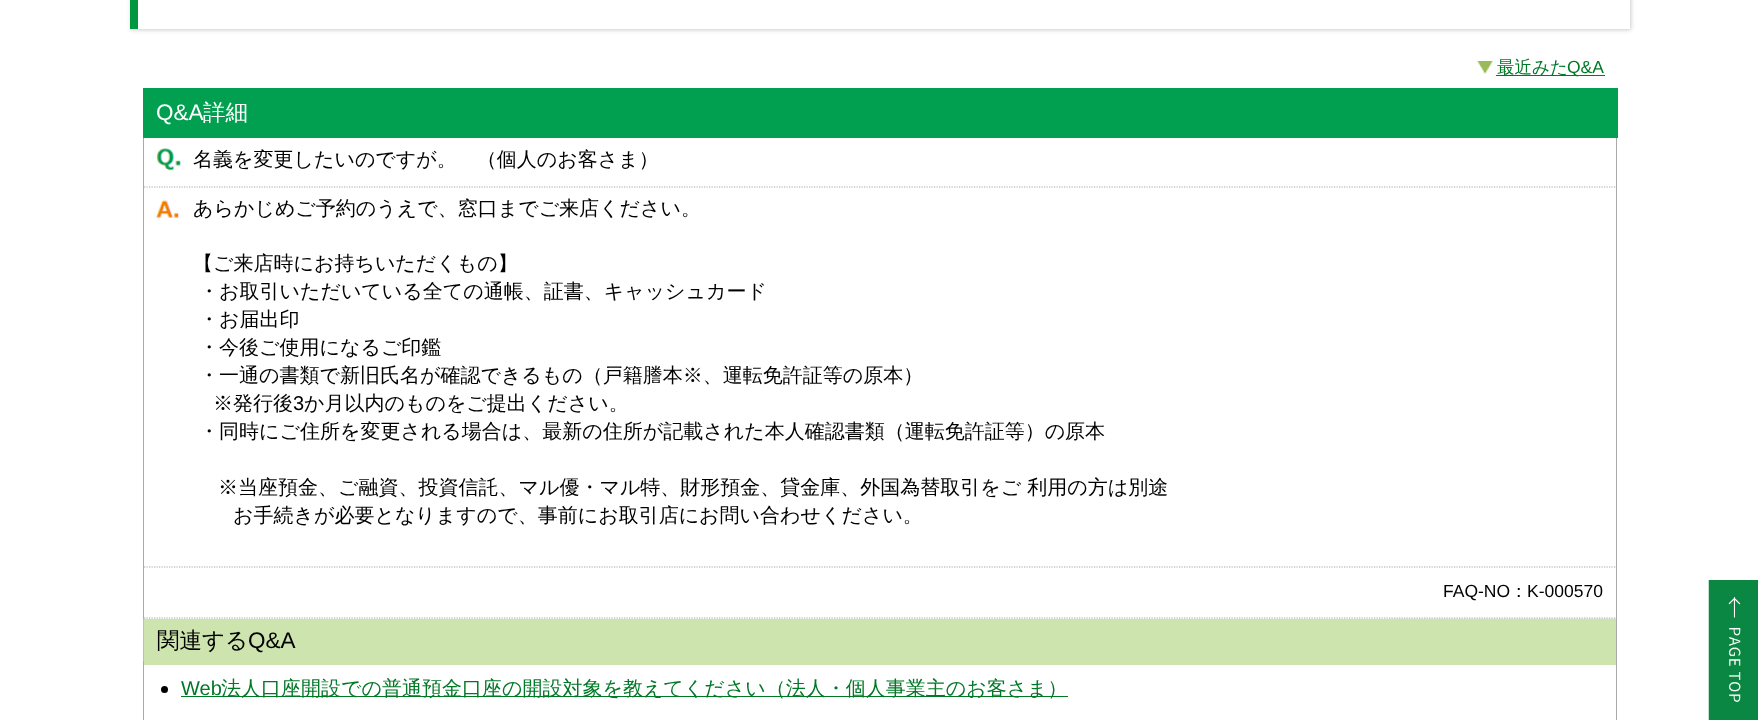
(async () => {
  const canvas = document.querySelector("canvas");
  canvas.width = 1758;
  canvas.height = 720;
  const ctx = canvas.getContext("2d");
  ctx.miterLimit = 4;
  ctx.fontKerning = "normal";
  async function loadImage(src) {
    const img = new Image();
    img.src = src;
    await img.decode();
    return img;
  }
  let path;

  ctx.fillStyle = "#ffffff";
  ctx.fillRect(0, 0, 1758, 720);
  ctx.fillStyle = "rgba(0, 0, 0, 0.2)";
  ctx.filter = "blur(2px)";
  ctx.beginPath();
  ctx.rect(131, -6, 1500, 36);
  ctx.fill();
  ctx.filter = "none";
  ctx.fillStyle = "#ffffff";
  ctx.fillRect(138, 0, 1492, 29);
  ctx.fillStyle = "#01973e";
  ctx.fillRect(130, 0, 8, 29);
  ctx.drawImage(await loadImage("img/1.png"), 1477, 61, 16, 13);
  for (const [x, y, w, h, color] of [
    [1496, 75, 109, 1, "#007826"],
    [143, 88, 1475, 50, "#00a050"],
    [1616, 138, 1, 582, "#aaaaaa"],
    [143, 138, 1, 582, "#aaaaaa"],
  ]) {
    ctx.fillStyle = color;
    ctx.fillRect(x, y, w, h);
  }
  ctx.drawImage(await loadImage("img/2.png"), 156, 148, 25, 23);
  path = new Path2D("M144 187H1616");
  ctx.strokeStyle = "#aaaaaa";
  ctx.lineWidth = 1.2;
  ctx.setLineDash([1.25, 1.25]);
  ctx.stroke(path);
  ctx.drawImage(await loadImage("img/3.png"), 156, 200, 24, 18);
  path = new Path2D("M144 567H1616");
  ctx.stroke(path);
  ctx.fillStyle = "#f1f1f1";
  ctx.fillRect(144, 618, 1472, 1);
  ctx.drawImage(await loadImage("img/4.png"), 143, 618, 1247, 43);
  path = new Path2D("M144 618H1616");
  ctx.stroke(path);
  ctx.fillStyle = "#cee4ae";
  ctx.fillRect(144, 619, 1472, 46);
  ctx.fillStyle = "#000000";
  ctx.beginPath();
  ctx.arc(164.5, 689.5, 3.5, 0, Math.PI * 2);
  ctx.fill();
  ctx.fillStyle = "#007826";
  ctx.fillRect(181, 696, 887, 1);
  ctx.drawImage(await loadImage("img/5.png"), 1708, 580, 50, 140);
  ctx.font = "500 17.5px WenQuanYi Zen Hei";
  ctx.fillText("最近みた", 1497, 73);
  ctx.font = "17.5px Liberation Sans";
  ctx.fillText("Q&A", 1567, 73);
  ctx.font = "22.5px Liberation Sans";
  ctx.fillStyle = "#ffffff";
  ctx.fillText("Q&A", 156, 120);
  ctx.font = "500 22.5px WenQuanYi Zen Hei";
  ctx.fillText("詳細", 203, 120);
  ctx.font = "500 20px WenQuanYi Zen Hei";
  ctx.fillStyle = "#000000";
  for (const [text, x, y] of [
    ["名義を変更したいのですが。　（個人のお客さま）", 193, 166],
    ["あらかじめご予約のうえで、窓口までご来店ください。", 193, 215],
    ["【ご来店時にお持ちいただくもの】", 193, 270],
    ["・お取引いただいている全ての通帳、証書、キャッシュカード", 199, 298],
    ["・お届出印", 199, 326],
    ["・今後ご使用になるご印鑑", 199, 354],
    ["・一通の書類で新旧氏名が確認できるもの（戸籍謄本※、運転免許証等の原本）", 199, 382],
    ["※発行後", 213, 410],
  ]) {
    ctx.fillText(text, x, y);
  }
  ctx.font = "20px Liberation Sans";
  ctx.fillText("3", 293, 410);
  ctx.font = "500 20px WenQuanYi Zen Hei";
  for (const [text, x, y] of [
    ["か月以内のものをご提出ください。", 304, 410],
    ["・同時にご住所を変更される場合は、最新の住所が記載された本人確認書類（運転免許証等）の原本", 199, 438],
    ["※当座預金、ご融資、投資信託、マル優・マル特、財形預金、貸金庫、外国為替取引をご 利用の方は別途", 218, 494],
    ["お手続きが必要となりますので、事前にお取引店にお問い合わせください。", 233, 522],
  ]) {
    ctx.fillText(text, x, y);
  }
  ctx.font = "17.5px Liberation Sans";
  ctx.fillText("FAQ-NO", 1443, 597);
  ctx.font = "500 17.5px WenQuanYi Zen Hei";
  ctx.fillText("：", 1510, 597);
  ctx.font = "17.5px Liberation Sans";
  ctx.fillText("K-000570", 1527, 597);
  ctx.font = "500 22.5px WenQuanYi Zen Hei";
  ctx.fillText("関連する", 157, 648);
  ctx.font = "22.5px Liberation Sans";
  ctx.fillText("Q&A", 248, 648);
  ctx.font = "20px Liberation Sans";
  ctx.fillStyle = "#007826";
  ctx.fillText("Web", 181, 695);
  ctx.font = "500 20px WenQuanYi Zen Hei";
  ctx.fillText("法人口座開設での普通預金口座の開設対象を教えてください（法人・個人事業主のお客さま）", 221, 695);
})();
